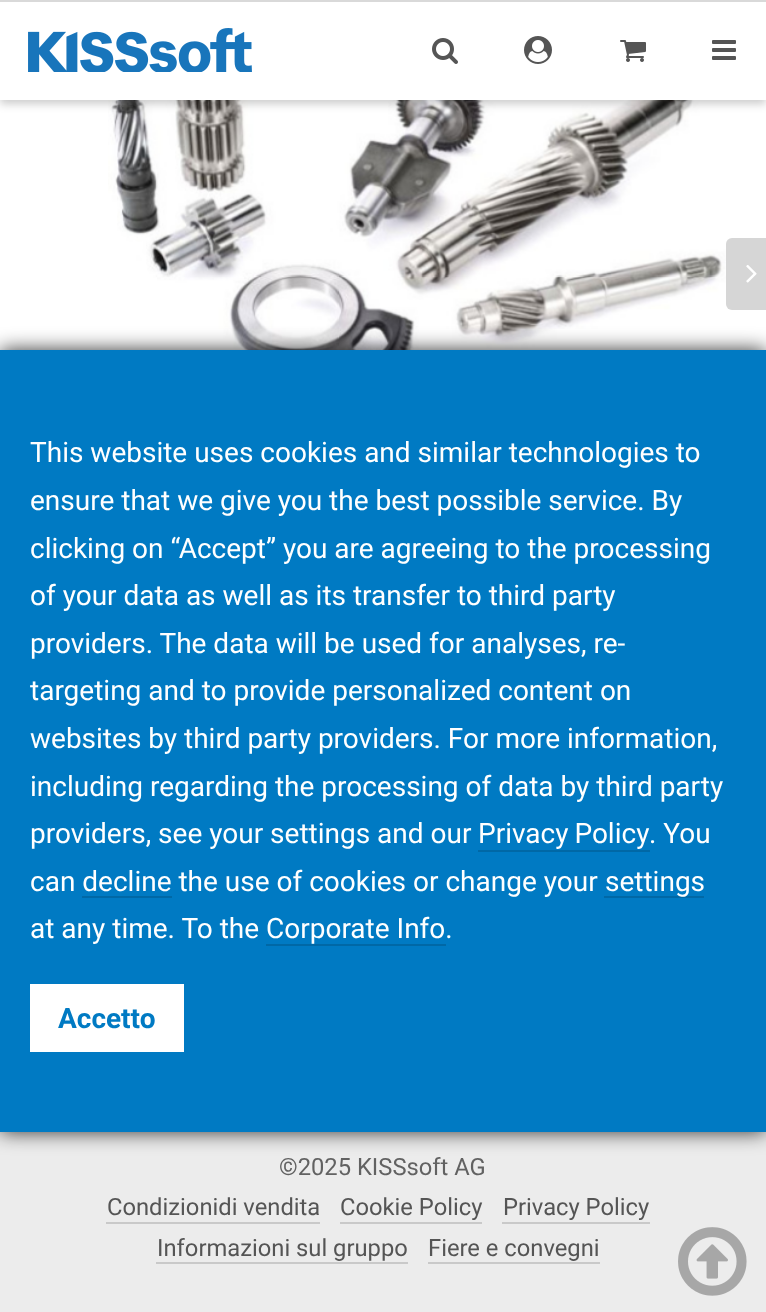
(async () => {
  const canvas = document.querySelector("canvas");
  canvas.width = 766;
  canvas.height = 1312;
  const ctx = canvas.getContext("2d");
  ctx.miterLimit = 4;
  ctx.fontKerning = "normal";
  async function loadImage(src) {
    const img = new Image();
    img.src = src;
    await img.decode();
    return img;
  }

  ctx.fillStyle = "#ffffff";
  ctx.fillRect(0, 0, 766, 1312);
  ctx.drawImage(await loadImage("img/6.png"), 108, 100, 628, 250);
  ctx.fillStyle = "#ececec";
  ctx.fillRect(0, 1132, 766, 180);
  ctx.fillStyle = "rgba(0, 0, 0, 0.8)";
  ctx.filter = "blur(10px)";
  ctx.beginPath();
  ctx.rect(0, 350, 766, 782);
  ctx.fill();
  ctx.filter = "none";
  for (const [x, y, w, h, color] of [
    [0, 350, 766, 782, "#007ac3"],
    [478, 850, 172, 2, "#0068a6"],
    [604, 896, 100, 2, "#0068a6"],
    [266, 944, 180, 2, "#0068a6"],
    [30, 984, 154, 68, "#ffffff"],
  ]) {
    ctx.fillStyle = color;
    ctx.fillRect(x, y, w, h);
  }
  ctx.fillStyle = "rgba(0, 0, 0, 0.2)";
  ctx.filter = "blur(4px)";
  ctx.beginPath();
  ctx.rect(0, 4, 766, 100);
  ctx.fill();
  ctx.filter = "none";
  ctx.fillStyle = "#ffffff";
  ctx.fillRect(0, 2, 766, 98);
  ctx.drawImage(await loadImage("img/1.png"), 28, 28, 224, 44);
  ctx.drawImage(await loadImage("img/2.png"), 432, 38, 26, 26);
  ctx.drawImage(await loadImage("img/3.png"), 524, 36, 28, 28);
  ctx.drawImage(await loadImage("img/4.png"), 620, 40, 26, 22);
  ctx.drawImage(await loadImage("img/5.png"), 712, 40, 24, 20);
  ctx.fillStyle = "#d9d9d9";
  ctx.fillRect(0, 0, 766, 2);
  ctx.fillStyle = "#d6d6d6";
  ctx.beginPath();
  ctx.roundRect(726, 238, 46, 72, 6);
  ctx.fill();
  ctx.drawImage(await loadImage("img/7.png"), 746, 265, 11, 18);
  for (const [x, y, w, h, color] of [
    [106, 1222, 214, 2, "#c9c9c9"],
    [340, 1222, 142, 2, "#c9c9c9"],
    [502, 1222, 148, 2, "#c9c9c9"],
    [156, 1262, 252, 2, "#c9c9c9"],
    [428, 1262, 172, 2, "#c9c9c9"],
  ]) {
    ctx.fillStyle = color;
    ctx.fillRect(x, y, w, h);
  }
  ctx.drawImage(await loadImage("img/8.png"), 678, 1227, 69, 69);
  ctx.font = "28px Roboto";
  ctx.fillStyle = "#ffffff";
  for (const [text, x, y] of [
    ["This website uses cookies and similar technologies to", 30, 462],
    ["ensure that we give you the best possible service. By", 30, 510],
    ["clicking on “Accept” you are agreeing to the processing", 30, 558],
    ["of your data as well as its transfer to third party", 30, 605],
    ["providers. The data will be used for analyses, re-", 30, 653],
    ["targeting and to provide personalized content on", 30, 700],
    ["websites by third party providers. For more information,", 30, 748],
    ["including regarding the processing of data by third party", 30, 796],
    ["providers, see your settings and our", 30, 843],
  ]) {
    ctx.fillText(text, x, y);
  }
  ctx.wordSpacing = "-1px";
  ctx.fillText("Privacy Policy", 478, 843);
  ctx.wordSpacing = "0px";
  for (const [text, x, y] of [
    [". You", 649, 843],
    ["can decline the use of cookies or change your", 30, 891],
    ["settings", 605, 891],
  ]) {
    ctx.fillText(text, x, y);
  }
  ctx.fillStyle = "#0068a6";
  ctx.fillRect(82, 896, 90, 2);
  ctx.fillStyle = "#ffffff";
  ctx.fillText("at any time. To the Corporate Info.", 30, 938);
  ctx.font = "bold 28px Roboto";
  ctx.fillStyle = "#007ac3";
  ctx.fillText("Accetto", 58, 1028);
  ctx.font = "23.75px Roboto";
  ctx.fillStyle = "#626262";
  ctx.fillText("©2025 KISSsoft AG", 279, 1175);
  ctx.fillStyle = "#555555";
  for (const [text, x, y] of [
    ["Condizionidi vendita", 107, 1215],
    ["Cookie Policy", 340, 1215],
    ["Privacy Policy", 503, 1215],
    ["Informazioni sul gruppo", 157, 1256],
    ["Fiere e convegni", 428, 1256],
  ]) {
    ctx.fillText(text, x, y);
  }
})();
